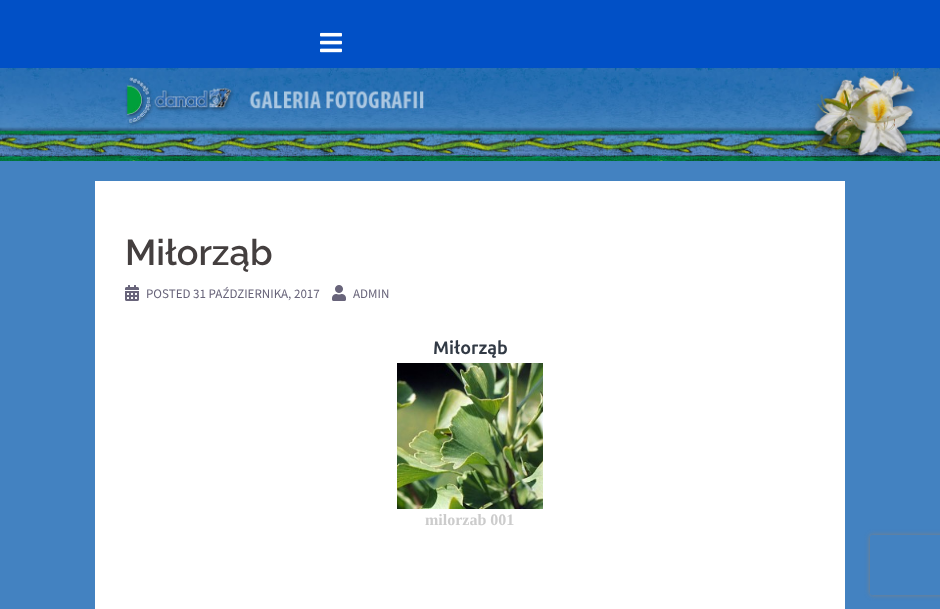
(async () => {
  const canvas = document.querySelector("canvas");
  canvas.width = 940;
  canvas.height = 609;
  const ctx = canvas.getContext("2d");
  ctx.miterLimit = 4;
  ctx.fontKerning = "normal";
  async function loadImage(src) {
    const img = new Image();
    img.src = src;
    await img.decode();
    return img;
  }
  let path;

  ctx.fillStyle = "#4382c1";
  ctx.fillRect(0, 0, 940, 609);
  ctx.fillStyle = "#0150c6";
  ctx.fillRect(0, 0, 940, 68);
  ctx.drawImage(await loadImage("img/1.png"), 320, 32, 22, 21);
  ctx.drawImage(await loadImage("img/2.png"), 0, 68, 940, 93);
  ctx.fillStyle = "#ffffff";
  ctx.fillRect(95, 181, 750, 428);
  ctx.drawImage(await loadImage("img/3.png"), 125, 285, 14, 16);
  ctx.drawImage(await loadImage("img/4.png"), 332, 285, 14, 16);
  ctx.drawImage(await loadImage("img/5.png"), 397, 363, 146, 146);
  ctx.save();
  path = new Path2D("M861 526H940V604H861ZM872 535H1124C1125 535 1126 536 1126 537V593C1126 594 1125 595 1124 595H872C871 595 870 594 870 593V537C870 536 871 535 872 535Z");
  ctx.clip(path, "evenodd");
  ctx.fillStyle = "#808080";
  ctx.filter = "blur(2.5px)";
  ctx.beginPath();
  ctx.roundRect(870, 535, 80, 60, 2);
  ctx.fill();
  ctx.filter = "none";
  ctx.restore();
  ctx.font = "100 36px Raleway";
  ctx.fillStyle = "#443f3f";
  ctx.fillText("Miłorząb", 125, 265);
  ctx.font = "13px Source Sans Pro";
  ctx.fillStyle = "#68647a";
  ctx.fillText("POSTED 31 PAŹDZIERNIKA, 2017", 146, 298);
  ctx.fillText("ADMIN", 353, 298);
  ctx.font = "bold 18px Ubuntu";
  ctx.fillStyle = "#323a45";
  ctx.fillText("Miłorząb", 433, 354);
  ctx.font = "bold 16px Liberation Serif";
  ctx.fillStyle = "#cccccc";
  ctx.fillText("milorzab 001", 425, 525);
})();
